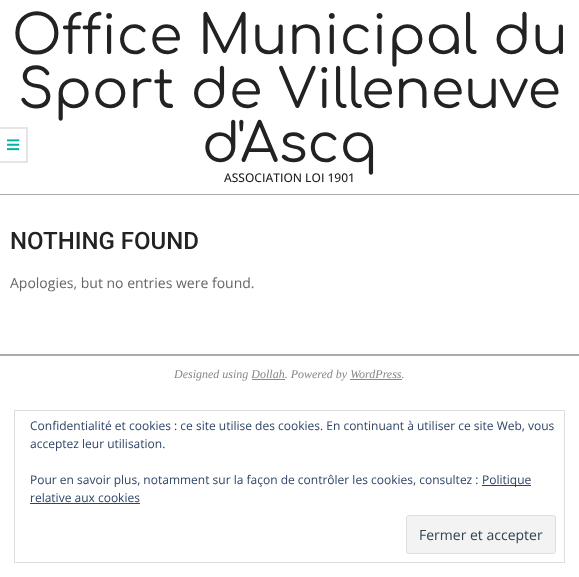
(async () => {
  const canvas = document.querySelector("canvas");
  canvas.width = 579;
  canvas.height = 577;
  const ctx = canvas.getContext("2d");
  ctx.miterLimit = 4;
  ctx.fontKerning = "normal";
  async function loadImage(src) {
    const img = new Image();
    img.src = src;
    await img.decode();
    return img;
  }
  let path;

  ctx.fillStyle = "#ffffff";
  ctx.fillRect(0, 0, 579, 577);
  ctx.fillStyle = "#aaaaaa";
  ctx.fillRect(0, 194, 579, 1);
  ctx.fillStyle = "#e6e6e6";
  path = new Path2D("M0 127H28L26 129H0Z");
  ctx.fill(path);
  ctx.fillStyle = "rgba(0, 0, 0, 0.1)";
  path = new Path2D("M28 127V163L26 161V129Z");
  ctx.fill(path);
  path = new Path2D("M28 163H0V161H26Z");
  ctx.fill(path);
  ctx.drawImage(await loadImage("img/1.png"), 7, 139, 13, 12);
  for (const [x, y, w, h, color] of [
    [0, 354, 579, 1, "#aaaaaa"],
    [0, 355, 579, 1, "#ababab"],
    [252, 379, 33, 1, "#888888"],
    [350, 379, 52, 1, "#888888"],
  ]) {
    ctx.fillStyle = color;
    ctx.fillRect(x, y, w, h);
  }
  ctx.strokeStyle = "#dedede";
  ctx.strokeRect(14.5, 410.5, 550, 152);
  ctx.fillStyle = "#2e4467";
  ctx.fillRect(482, 485, 49, 1);
  ctx.fillRect(30, 503, 110, 1);
  ctx.fillStyle = "#f3f3f3";
  ctx.beginPath();
  ctx.roundRect(406.5, 515.5, 149, 38, 2.5);
  ctx.fill();
  ctx.stroke();
  ctx.font = "54px Comfortaa";
  ctx.fillStyle = "#222222";
  for (const [text, x, y] of [
    ["Office Municipal du", 12, 54],
    ["Sport de Villeneuve", 18, 108],
    ["d'Ascq", 202, 162],
  ]) {
    ctx.fillText(text, x, y);
  }
  ctx.font = "500 12px Open Sans";
  ctx.fillText("ASSOCIATION LOI 1901", 224, 182);
  ctx.font = "500 24px Roboto";
  ctx.fillText("NOTHING FOUND", 10, 249);
  ctx.font = "14px Open Sans";
  ctx.fillStyle = "#666666";
  ctx.fillText("Apologies, but no entries were found.", 10, 288);
  ctx.font = "italic 12px Liberation Serif";
  ctx.fillStyle = "#888888";
  ctx.fillText("Designed using Dollah. Powered by WordPress.", 174, 378);
  ctx.font = "12px Open Sans";
  ctx.fillStyle = "#2e4467";
  for (const [text, x, y] of [
    ["Confidentialité et cookies : ce site utilise des cookies. En continuant à utiliser ce site Web, vous", 30, 430],
    ["acceptez leur utilisation.", 30, 448],
    ["Pour en savoir plus, notamment sur la façon de contrôler les cookies, consultez :", 30, 484],
    ["Politique", 482, 484],
    ["relative aux cookies", 30, 502],
  ]) {
    ctx.fillText(text, x, y);
  }
  ctx.font = "14px Open Sans";
  ctx.fillStyle = "#2e4453";
  ctx.fillText("Fermer et accepter", 419, 540);
})();
